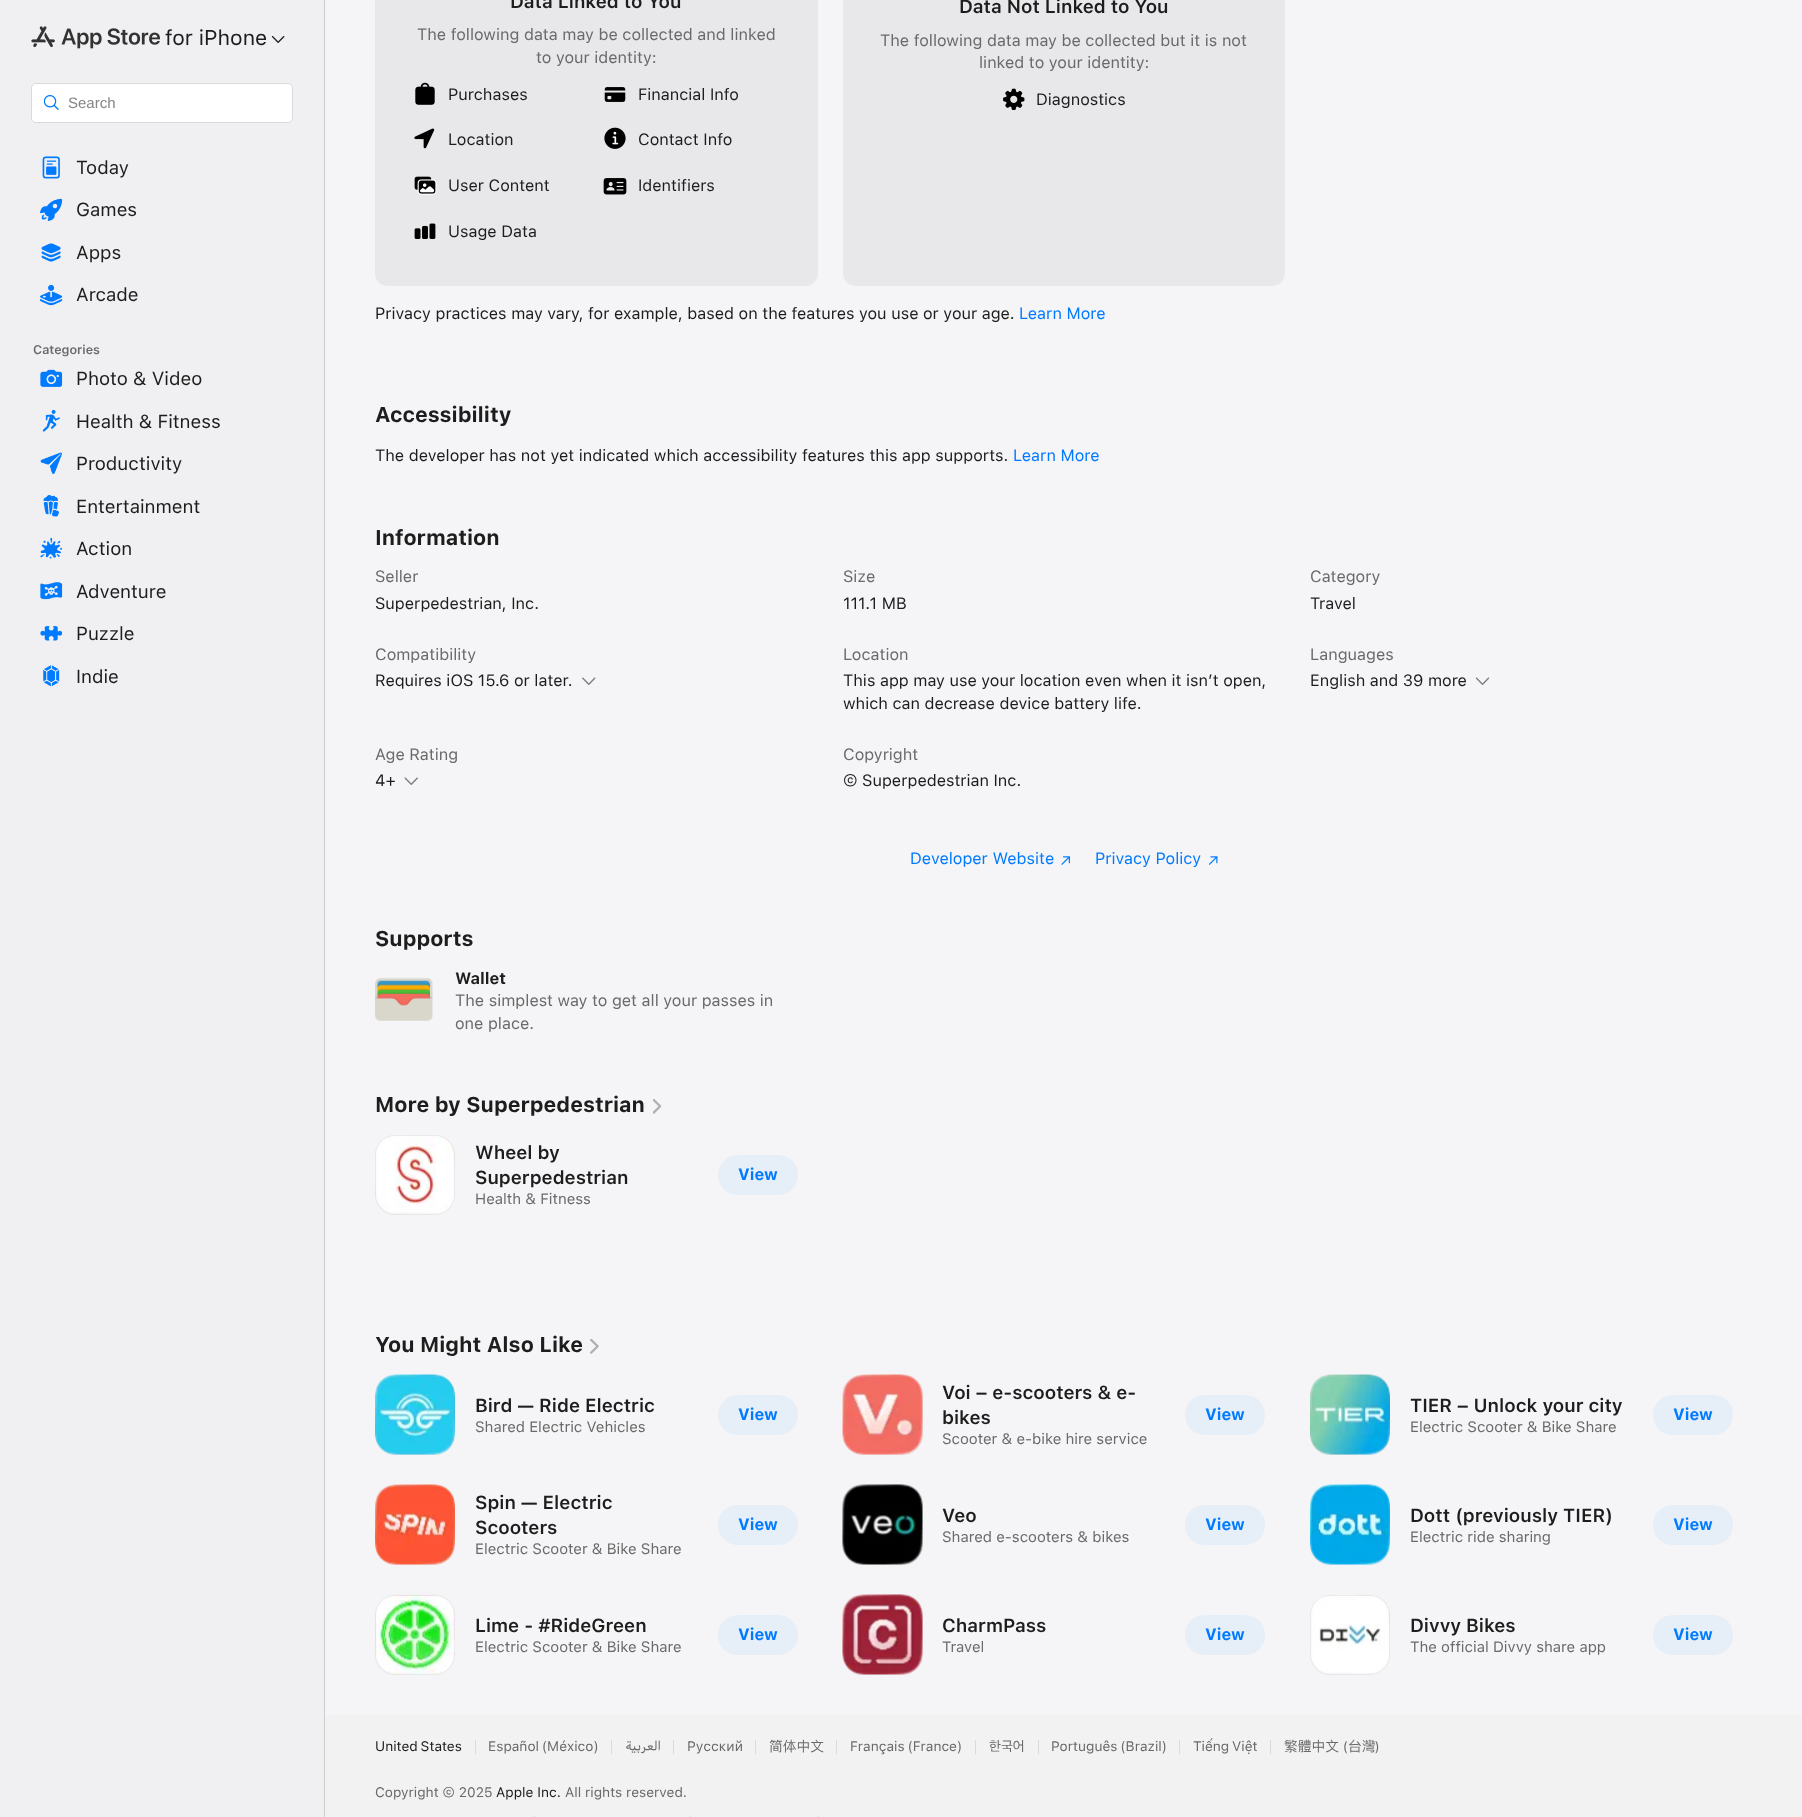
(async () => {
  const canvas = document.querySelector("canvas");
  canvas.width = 1802;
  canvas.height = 1817;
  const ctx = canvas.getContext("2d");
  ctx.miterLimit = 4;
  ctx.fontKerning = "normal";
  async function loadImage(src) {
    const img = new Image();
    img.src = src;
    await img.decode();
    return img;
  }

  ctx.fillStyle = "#f5f5f7";
  ctx.fillRect(0, 0, 1802, 1817);
  ctx.fillStyle = "#f0f0f2";
  ctx.fillRect(0, 0, 324, 1817);
  ctx.fillStyle = "#ccccce";
  ctx.fillRect(324, 0, 1, 1817);
  ctx.drawImage(await loadImage("img/1.png"), 31, 26, 129, 23);
  ctx.drawImage(await loadImage("img/2.png"), 271, 36, 14, 7);
  ctx.fillStyle = "#ffffff";
  ctx.beginPath();
  ctx.roundRect(31, 83, 262, 40, 5);
  ctx.fill();
  ctx.beginPath();
  ctx.roundRect(31.5, 83.5, 261, 39, 4.5);
  ctx.strokeStyle = "rgba(0, 0, 0, 0.15)";
  ctx.stroke();
  ctx.drawImage(await loadImage("img/3.png"), 44, 95, 15, 15);
  ctx.drawImage(await loadImage("img/4.png"), 42, 156, 18, 23);
  ctx.drawImage(await loadImage("img/5.png"), 40, 198, 23, 23);
  ctx.drawImage(await loadImage("img/6.png"), 41, 243, 20, 19);
  ctx.drawImage(await loadImage("img/7.png"), 40, 284, 23, 22);
  ctx.drawImage(await loadImage("img/8.png"), 40, 369, 23, 18);
  ctx.drawImage(await loadImage("img/9.png"), 42, 409, 18, 23);
  ctx.drawImage(await loadImage("img/10.png"), 40, 452, 22, 22);
  ctx.drawImage(await loadImage("img/11.png"), 43, 495, 16, 22);
  ctx.drawImage(await loadImage("img/12.png"), 40, 537, 23, 22);
  ctx.drawImage(await loadImage("img/13.png"), 40, 582, 23, 18);
  ctx.drawImage(await loadImage("img/14.png"), 40, 626, 23, 15);
  ctx.drawImage(await loadImage("img/15.png"), 43, 665, 17, 22);
  ctx.fillStyle = "#e8e8eb";
  ctx.beginPath();
  ctx.roundRect(375, -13, 443, 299, 13);
  ctx.fill();
  ctx.drawImage(await loadImage("img/16.png"), 415, 82, 20, 23);
  ctx.drawImage(await loadImage("img/17.png"), 604, 87, 22, 15);
  ctx.drawImage(await loadImage("img/18.png"), 414, 128, 21, 21);
  ctx.drawImage(await loadImage("img/19.png"), 604, 127, 22, 22);
  ctx.drawImage(await loadImage("img/20.png"), 414, 176, 23, 19);
  ctx.drawImage(await loadImage("img/21.png"), 603, 178, 24, 17);
  ctx.drawImage(await loadImage("img/22.png"), 414, 223, 22, 16);
  ctx.beginPath();
  ctx.roundRect(843, -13, 442, 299, 13);
  ctx.fill();
  ctx.drawImage(await loadImage("img/23.png"), 1003, 88, 22, 22);
  ctx.drawImage(await loadImage("img/24.png"), 582, 677, 14, 8);
  ctx.drawImage(await loadImage("img/25.png"), 1475, 677, 15, 8);
  ctx.drawImage(await loadImage("img/26.png"), 404, 777, 14, 8);
  ctx.drawImage(await loadImage("img/27.png"), 1061, 856, 9, 9);
  ctx.drawImage(await loadImage("img/28.png"), 1209, 856, 9, 9);
  ctx.drawImage(await loadImage("img/29.png"), 375, 977, 58, 44);
  ctx.drawImage(await loadImage("img/30.png"), 653, 1099, 8, 15);
  ctx.drawImage(await loadImage("img/31.png"), 375, 1135, 80, 80);
  ctx.beginPath();
  ctx.roundRect(375.5, 1135.5, 79, 79, 19.5);
  ctx.strokeStyle = "rgba(128, 128, 128, 0.1)";
  ctx.stroke();
  ctx.fillStyle = "#e6eef7";
  ctx.beginPath();
  ctx.roundRect(718, 1155, 80, 40, 20);
  ctx.fill();
  ctx.drawImage(await loadImage("img/32.png"), 590, 1339, 9, 15);
  ctx.drawImage(await loadImage("img/33.png"), 375, 1374, 80, 81);
  ctx.beginPath();
  ctx.roundRect(375.5, 1375.5, 79, 79, 19.5);
  ctx.stroke();
  ctx.beginPath();
  ctx.roundRect(718, 1395, 80, 40, 20);
  ctx.fill();
  ctx.drawImage(await loadImage("img/34.png"), 842, 1374, 81, 81);
  ctx.beginPath();
  ctx.roundRect(843.5, 1375.5, 79, 79, 19.5);
  ctx.stroke();
  ctx.beginPath();
  ctx.roundRect(1185, 1395, 80, 40, 20);
  ctx.fill();
  ctx.drawImage(await loadImage("img/35.png"), 1310, 1374, 80, 81);
  ctx.beginPath();
  ctx.roundRect(1310.5, 1375.5, 79, 79, 19.5);
  ctx.stroke();
  ctx.beginPath();
  ctx.roundRect(1653, 1395, 80, 40, 20);
  ctx.fill();
  ctx.drawImage(await loadImage("img/36.png"), 375, 1484, 80, 81);
  ctx.beginPath();
  ctx.roundRect(375.5, 1485.5, 79, 79, 19.5);
  ctx.stroke();
  ctx.beginPath();
  ctx.roundRect(718, 1505, 80, 40, 20);
  ctx.fill();
  ctx.drawImage(await loadImage("img/37.png"), 842, 1484, 81, 81);
  ctx.beginPath();
  ctx.roundRect(843.5, 1485.5, 79, 79, 19.5);
  ctx.stroke();
  ctx.beginPath();
  ctx.roundRect(1185, 1505, 80, 40, 20);
  ctx.fill();
  ctx.drawImage(await loadImage("img/38.png"), 1310, 1484, 80, 81);
  ctx.beginPath();
  ctx.roundRect(1310.5, 1485.5, 79, 79, 19.5);
  ctx.stroke();
  ctx.beginPath();
  ctx.roundRect(1653, 1505, 80, 40, 20);
  ctx.fill();
  ctx.drawImage(await loadImage("img/39.png"), 375, 1594, 80, 81);
  ctx.beginPath();
  ctx.roundRect(375.5, 1595.5, 79, 79, 19.5);
  ctx.stroke();
  ctx.beginPath();
  ctx.roundRect(718, 1615, 80, 40, 20);
  ctx.fill();
  ctx.drawImage(await loadImage("img/40.png"), 842, 1594, 81, 81);
  ctx.beginPath();
  ctx.roundRect(843.5, 1595.5, 79, 79, 19.5);
  ctx.stroke();
  ctx.beginPath();
  ctx.roundRect(1185, 1615, 80, 40, 20);
  ctx.fill();
  ctx.drawImage(await loadImage("img/41.png"), 1310, 1594, 80, 81);
  ctx.beginPath();
  ctx.roundRect(1310.5, 1595.5, 79, 79, 19.5);
  ctx.stroke();
  ctx.beginPath();
  ctx.roundRect(1653, 1615, 80, 40, 20);
  ctx.fill();
  for (const [x, y, w, h, color] of [
    [325, 1715, 1477, 102, "#f2f2f2"],
    [475, 1740, 1, 14, "#dadada"],
    [611, 1740, 1, 14, "#dadada"],
    [673, 1740, 1, 14, "#dadada"],
    [755, 1740, 1, 14, "#dadada"],
    [836, 1740, 1, 14, "#dadada"],
    [975, 1740, 1, 14, "#dadada"],
    [1038, 1740, 1, 14, "#dadada"],
    [1179, 1740, 1, 14, "#dadada"],
    [1270, 1740, 1, 14, "#dadada"],
    [534, 1816, 1, 1, "#dadada"],
    [690, 1816, 1, 1, "#dadada"],
    [818, 1816, 1, 1, "#dadada"],
  ]) {
    ctx.fillStyle = color;
    ctx.fillRect(x, y, w, h);
  }
  ctx.font = "21.25px SF";
  ctx.fillStyle = "#1d1d1d";
  ctx.fillText("for iPhone", 165, 45);
  ctx.font = "15px Liberation Sans";
  ctx.fillStyle = "#858585";
  ctx.fillText("Search", 68, 108);
  ctx.font = "18.75px SF";
  ctx.fillStyle = "#1d1d1d";
  for (const [text, x, y] of [
    ["Today", 76, 174],
    ["Games", 76, 216],
    ["Apps", 76, 259],
    ["Arcade", 76, 301],
  ]) {
    ctx.fillText(text, x, y);
  }
  ctx.font = "600 12.5px SF";
  ctx.fillStyle = "#6a6a6a";
  ctx.fillText("Categories", 33, 354);
  ctx.font = "18.75px SF";
  ctx.fillStyle = "#1d1d1d";
  for (const [text, x, y] of [
    ["Photo & Video", 76, 385],
    ["Health & Fitness", 76, 428],
    ["Productivity", 76, 470],
    ["Entertainment", 76, 513],
    ["Action", 76, 555],
    ["Adventure", 76, 598],
    ["Puzzle", 76, 640],
    ["Indie", 76, 683],
  ]) {
    ctx.fillText(text, x, y);
  }
  ctx.font = "600 18.75px SF";
  ctx.fillText("Data Linked to You", 510, 8);
  ctx.font = "16.25px SF";
  ctx.fillStyle = "#6a6a6a";
  ctx.fillText("The following data may be collected and linked", 417, 40);
  ctx.fillText("to your identity:", 536, 63);
  ctx.fillStyle = "#1d1d1d";
  for (const [text, x, y] of [
    ["Purchases", 448, 100],
    ["Financial Info", 638, 100],
    ["Location", 448, 145],
    ["Contact Info", 638, 145],
    ["User Content", 448, 191],
    ["Identifiers", 638, 191],
    ["Usage Data", 448, 237],
  ]) {
    ctx.fillText(text, x, y);
  }
  ctx.font = "600 18.75px SF";
  ctx.fillText("Data Not Linked to You", 959, 13);
  ctx.font = "16.25px SF";
  ctx.fillStyle = "#6a6a6a";
  ctx.fillText("The following data may be collected but it is not", 880, 46);
  ctx.fillText("linked to your identity:", 979, 68);
  ctx.fillStyle = "#1d1d1d";
  ctx.fillText("Diagnostics", 1036, 105);
  ctx.fillText("Privacy practices may vary, for example, based on the features you use or your age.", 375, 319);
  ctx.fillStyle = "#007aff";
  ctx.fillText("Learn More", 1019, 319);
  ctx.font = "bold 21.25px SF";
  ctx.fillStyle = "#1d1d1d";
  ctx.fillText("Accessibility", 375, 422);
  ctx.font = "16.25px SF";
  ctx.fillText("The developer has not yet indicated which accessibility features this app supports.", 375, 461);
  ctx.fillStyle = "#007aff";
  ctx.fillText("Learn More", 1013, 461);
  ctx.font = "bold 21.25px SF";
  ctx.fillStyle = "#1d1d1d";
  ctx.fillText("Information", 375, 545);
  ctx.font = "16.25px SF";
  ctx.fillStyle = "#6a6a6a";
  ctx.fillText("Seller", 375, 582);
  ctx.fillStyle = "#1d1d1d";
  ctx.fillText("Superpedestrian, Inc.", 375, 609);
  ctx.fillStyle = "#6a6a6a";
  ctx.fillText("Size", 843, 582);
  ctx.fillStyle = "#1d1d1d";
  ctx.fillText("111.1 MB", 843, 609);
  ctx.fillStyle = "#6a6a6a";
  ctx.fillText("Category", 1310, 582);
  ctx.fillStyle = "#1d1d1d";
  ctx.fillText("Travel", 1310, 609);
  ctx.fillStyle = "#6a6a6a";
  ctx.fillText("Compatibility", 375, 660);
  ctx.fillStyle = "#1d1d1d";
  ctx.fillText("Requires iOS 15.6 or later.", 375, 686);
  ctx.fillStyle = "#6a6a6a";
  ctx.fillText("Location", 843, 660);
  ctx.fillStyle = "#1d1d1d";
  ctx.fillText("This app may use your location even when it isn’t open,", 843, 686);
  ctx.fillText("which can decrease device battery life.", 843, 709);
  ctx.fillStyle = "#6a6a6a";
  ctx.fillText("Languages", 1310, 660);
  ctx.fillStyle = "#1d1d1d";
  ctx.fillText("English and 39 more", 1310, 686);
  ctx.fillStyle = "#6a6a6a";
  ctx.fillText("Age Rating", 375, 760);
  ctx.fillStyle = "#1d1d1d";
  ctx.fillText("4+", 375, 786);
  ctx.fillStyle = "#6a6a6a";
  ctx.fillText("Copyright", 843, 760);
  ctx.fillStyle = "#1d1d1d";
  ctx.fillText("© Superpedestrian Inc.", 843, 786);
  ctx.fillStyle = "#007aff";
  ctx.fillText("Developer Website", 910, 864);
  ctx.fillText("Privacy Policy", 1095, 864);
  ctx.font = "bold 21.25px SF";
  ctx.fillStyle = "#1d1d1d";
  ctx.fillText("Supports", 375, 946);
  ctx.font = "bold 16.25px SF";
  ctx.fillText("Wallet", 455, 984);
  ctx.font = "16.25px SF";
  ctx.fillStyle = "#6a6a6a";
  ctx.fillText("The simplest way to get all your passes in", 455, 1006);
  ctx.fillText("one place.", 455, 1029);
  ctx.font = "bold 21.25px SF";
  ctx.fillStyle = "#1d1d1d";
  ctx.fillText("More by Superpedestrian", 375, 1112);
  ctx.font = "600 18.75px SF";
  ctx.fillText("Wheel by", 475, 1159);
  ctx.fillText("Superpedestrian", 475, 1184);
  ctx.font = "15px SF";
  ctx.fillStyle = "#6a6a6a";
  ctx.fillText("Health & Fitness", 475, 1204);
  ctx.font = "bold 16.25px SF";
  ctx.fillStyle = "#007aff";
  ctx.fillText("View", 738, 1180);
  ctx.font = "bold 21.25px SF";
  ctx.fillStyle = "#1d1d1d";
  ctx.fillText("You Might Also Like", 375, 1352);
  ctx.font = "600 18.75px SF";
  ctx.fillText("Bird — Ride Electric", 475, 1412);
  ctx.font = "15px SF";
  ctx.fillStyle = "#6a6a6a";
  ctx.fillText("Shared Electric Vehicles", 475, 1432);
  ctx.font = "bold 16.25px SF";
  ctx.fillStyle = "#007aff";
  ctx.fillText("View", 738, 1420);
  ctx.font = "600 18.75px SF";
  ctx.fillStyle = "#1d1d1d";
  ctx.fillText("Voi – e-scooters & e-", 942, 1399);
  ctx.fillText("bikes", 942, 1424);
  ctx.font = "15px SF";
  ctx.fillStyle = "#6a6a6a";
  ctx.fillText("Scooter & e-bike hire service", 942, 1444);
  ctx.font = "bold 16.25px SF";
  ctx.fillStyle = "#007aff";
  ctx.fillText("View", 1205, 1420);
  ctx.font = "600 18.75px SF";
  ctx.fillStyle = "#1d1d1d";
  ctx.fillText("TIER – Unlock your city", 1410, 1412);
  ctx.font = "15px SF";
  ctx.fillStyle = "#6a6a6a";
  ctx.fillText("Electric Scooter & Bike Share", 1410, 1432);
  ctx.font = "bold 16.25px SF";
  ctx.fillStyle = "#007aff";
  ctx.fillText("View", 1673, 1420);
  ctx.font = "600 18.75px SF";
  ctx.fillStyle = "#1d1d1d";
  ctx.fillText("Spin — Electric", 475, 1509);
  ctx.fillText("Scooters", 475, 1534);
  ctx.font = "15px SF";
  ctx.fillStyle = "#6a6a6a";
  ctx.fillText("Electric Scooter & Bike Share", 475, 1554);
  ctx.font = "bold 16.25px SF";
  ctx.fillStyle = "#007aff";
  ctx.fillText("View", 738, 1530);
  ctx.font = "600 18.75px SF";
  ctx.fillStyle = "#1d1d1d";
  ctx.fillText("Veo", 942, 1522);
  ctx.font = "15px SF";
  ctx.fillStyle = "#6a6a6a";
  ctx.fillText("Shared e-scooters & bikes", 942, 1542);
  ctx.font = "bold 16.25px SF";
  ctx.fillStyle = "#007aff";
  ctx.fillText("View", 1205, 1530);
  ctx.font = "600 18.75px SF";
  ctx.fillStyle = "#1d1d1d";
  ctx.fillText("Dott (previously TIER)", 1410, 1522);
  ctx.font = "15px SF";
  ctx.fillStyle = "#6a6a6a";
  ctx.fillText("Electric ride sharing", 1410, 1542);
  ctx.font = "bold 16.25px SF";
  ctx.fillStyle = "#007aff";
  ctx.fillText("View", 1673, 1530);
  ctx.font = "600 18.75px SF";
  ctx.fillStyle = "#1d1d1d";
  ctx.fillText("Lime - #RideGreen", 475, 1632);
  ctx.font = "15px SF";
  ctx.fillStyle = "#6a6a6a";
  ctx.fillText("Electric Scooter & Bike Share", 475, 1652);
  ctx.font = "bold 16.25px SF";
  ctx.fillStyle = "#007aff";
  ctx.fillText("View", 738, 1640);
  ctx.font = "600 18.75px SF";
  ctx.fillStyle = "#1d1d1d";
  ctx.fillText("CharmPass", 942, 1632);
  ctx.font = "15px SF";
  ctx.fillStyle = "#6a6a6a";
  ctx.fillText("Travel", 942, 1652);
  ctx.font = "bold 16.25px SF";
  ctx.fillStyle = "#007aff";
  ctx.fillText("View", 1205, 1640);
  ctx.font = "600 18.75px SF";
  ctx.fillStyle = "#1d1d1d";
  ctx.fillText("Divvy Bikes", 1410, 1632);
  ctx.font = "15px SF";
  ctx.fillStyle = "#6a6a6a";
  ctx.fillText("The official Divvy share app", 1410, 1652);
  ctx.font = "bold 16.25px SF";
  ctx.fillStyle = "#007aff";
  ctx.fillText("View", 1673, 1640);
  ctx.wordSpacing = "-1px";
  ctx.font = "13.75px SF";
  ctx.fillStyle = "#1d1d1d";
  ctx.fillText("United States", 375, 1751);
  ctx.fillStyle = "#6a6a6a";
  ctx.fillText("Español (México)", 488, 1751);
  ctx.wordSpacing = "0px";
  ctx.direction = "rtl";
  ctx.font = "13.75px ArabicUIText";
  ctx.fillText("العربية", 661, 1751);
  ctx.direction = "ltr";
  ctx.font = "13.75px SF";
  ctx.fillText("Русский", 687, 1751);
  ctx.font = "13.75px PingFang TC";
  ctx.fillText("简体中文", 769, 1751);
  ctx.wordSpacing = "-1px";
  ctx.font = "13.75px SF";
  ctx.fillText("Français (France)", 850, 1751);
  ctx.wordSpacing = "0px";
  ctx.font = "13.75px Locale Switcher";
  ctx.fillText("한국어", 989, 1751);
  ctx.wordSpacing = "-1px";
  ctx.font = "13.75px SF";
  ctx.fillText("Português (Brazil)", 1051, 1751);
  ctx.fillText("Tiếng Việt", 1193, 1751);
  ctx.wordSpacing = "0px";
  ctx.font = "13.75px PingFang TC";
  ctx.fillText("繁體中文", 1284, 1751);
  ctx.font = "13.75px 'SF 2'";
  ctx.fillText("(", 1343, 1751);
  ctx.font = "13.75px PingFang TC";
  ctx.fillText("台灣", 1348, 1751);
  ctx.font = "13.75px 'SF 2'";
  ctx.fillText(")", 1375, 1751);
  ctx.font = "13.75px SF";
  ctx.fillText("Copyright © 2025", 375, 1797);
  ctx.fillStyle = "#1d1d1d";
  ctx.fillText("Apple Inc.", 496, 1797);
  ctx.fillStyle = "#6a6a6a";
  ctx.fillText("All rights reserved.", 565, 1797);
})();
